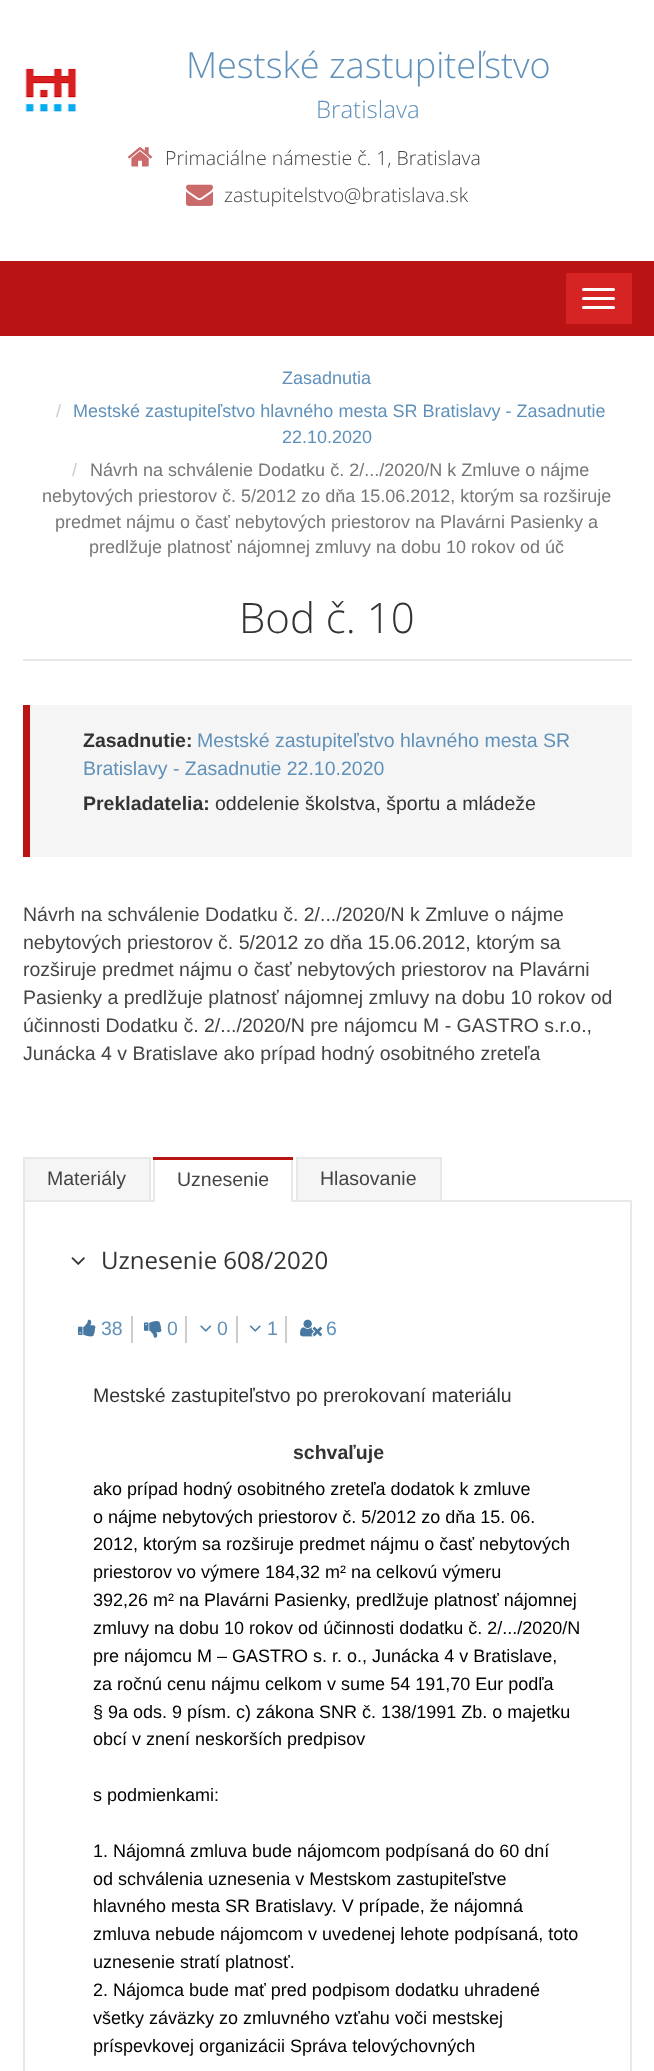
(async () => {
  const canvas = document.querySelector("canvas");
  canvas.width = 654;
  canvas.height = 2071;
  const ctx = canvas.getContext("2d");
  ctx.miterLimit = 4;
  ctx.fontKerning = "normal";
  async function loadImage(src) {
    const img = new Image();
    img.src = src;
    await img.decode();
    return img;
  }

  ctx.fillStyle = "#ffffff";
  ctx.fillRect(0, 0, 654, 2071);
  ctx.drawImage(await loadImage("img/1.png"), 24, 68, 53, 45);
  ctx.drawImage(await loadImage("img/2.png"), 128, 147, 25, 20);
  ctx.drawImage(await loadImage("img/3.png"), 186, 184, 27, 22);
  ctx.fillStyle = "#b91313";
  ctx.fillRect(0, 261, 654, 75);
  ctx.fillStyle = "#d62323";
  ctx.fillRect(566, 273, 66, 51);
  ctx.fillStyle = "#ffffff";
  ctx.beginPath();
  ctx.roundRect(582, 288, 33, 3, 1.5);
  ctx.fill();
  ctx.beginPath();
  ctx.roundRect(582, 297, 33, 3, 1.5);
  ctx.fill();
  ctx.beginPath();
  ctx.roundRect(582, 306, 33, 3, 1.5);
  ctx.fill();
  for (const [x, y, w, h, color] of [
    [23, 659, 609, 2, "#e8e8e8"],
    [30, 705, 602, 152, "#f5f5f5"],
    [23, 705, 7, 152, "#b91313"],
    [25, 1159, 124, 41, "#f5f5f5"],
    [23, 1157, 127, 2, "#e8e8e8"],
    [149, 1157, 2, 43, "#e8e8e8"],
    [23, 1157, 2, 43, "#e8e8e8"],
    [153, 1157, 140, 3, "#b91313"],
  ]) {
    ctx.fillStyle = color;
    ctx.fillRect(x, y, w, h);
  }
  ctx.strokeStyle = "#e8e8e8";
  ctx.lineWidth = 2;
  ctx.strokeRect(24, 1201, 607, 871);
  for (const [x, y, w, h, color] of [
    [155, 1200, 136, 2, "#ffffff"],
    [291, 1160, 2, 42, "#e8e8e8"],
    [153, 1160, 2, 42, "#e8e8e8"],
    [298, 1159, 142, 41, "#f5f5f5"],
    [296, 1157, 145, 2, "#e8e8e8"],
    [440, 1157, 2, 43, "#e8e8e8"],
    [296, 1157, 2, 43, "#e8e8e8"],
  ]) {
    ctx.fillStyle = color;
    ctx.fillRect(x, y, w, h);
  }
  ctx.drawImage(await loadImage("img/4.png"), 71, 1257, 14, 8);
  ctx.fillStyle = "#cccccc";
  ctx.fillRect(131, 1316, 2, 27);
  ctx.drawImage(await loadImage("img/5.png"), 78, 1319, 18, 18);
  ctx.fillRect(185, 1316, 2, 27);
  ctx.drawImage(await loadImage("img/6.png"), 144, 1321, 18, 17);
  ctx.fillRect(236, 1316, 2, 27);
  ctx.drawImage(await loadImage("img/7.png"), 200, 1325, 12, 7);
  ctx.fillRect(285, 1316, 2, 27);
  ctx.drawImage(await loadImage("img/8.png"), 249, 1325, 12, 7);
  ctx.drawImage(await loadImage("img/9.png"), 300, 1319, 23, 18);
  ctx.font = "300 36px Open Sans";
  ctx.fillStyle = "#6091ba";
  ctx.fillText("Mestské zastupiteľstvo", 186, 78);
  ctx.font = "300 24px Open Sans";
  ctx.fillText("Bratislava", 316, 118);
  ctx.font = "300 19.5px Open Sans";
  ctx.fillStyle = "#444444";
  ctx.fillText("Primaciálne námestie č. 1, Bratislava", 165, 165);
  ctx.fillText("zastupitelstvo@bratislava.sk", 224, 202);
  ctx.font = "18px Liberation Sans";
  ctx.fillStyle = "#6091ba";
  ctx.fillText("Zasadnutia", 282, 384);
  ctx.fillStyle = "#cccccc";
  ctx.fillText("/", 56, 417);
  ctx.fillStyle = "#6091ba";
  ctx.fillText("Mestské zastupiteľstvo hlavného mesta SR Bratislavy - Zasadnutie", 73, 417);
  ctx.fillText("22.10.2020", 282, 443);
  ctx.fillStyle = "#cccccc";
  ctx.fillText("/", 72, 476);
  ctx.fillStyle = "#777777";
  for (const [text, x, y] of [
    ["Návrh na schválenie Dodatku č. 2/.../2020/N k Zmluve o nájme", 90, 476],
    ["nebytových priestorov č. 5/2012 zo dňa 15.06.2012, ktorým sa rozširuje", 42, 502],
    ["predmet nájmu o časť nebytových priestorov na Plavárni Pasienky a", 55, 528],
    ["predlžuje platnosť nájomnej zmluvy na dobu 10 rokov od úč", 89, 553],
  ]) {
    ctx.fillText(text, x, y);
  }
  ctx.font = "300 42px Open Sans";
  ctx.fillStyle = "#333333";
  ctx.fillText("Bod č. 10", 239, 633);
  ctx.font = "bold 19.5px Liberation Sans";
  ctx.fillText("Zasadnutie:", 83, 747);
  ctx.font = "19.5px Liberation Sans";
  ctx.fillStyle = "#6091ba";
  ctx.fillText("Mestské zastupiteľstvo hlavného mesta SR", 197, 747);
  ctx.fillText("Bratislavy - Zasadnutie 22.10.2020", 83, 775);
  ctx.font = "bold 19.5px Liberation Sans";
  ctx.fillStyle = "#333333";
  ctx.fillText("Prekladatelia:", 83, 810);
  ctx.font = "19.5px Liberation Sans";
  ctx.fillText("oddelenie školstva, športu a mládeže", 215, 810);
  ctx.fillStyle = "#444444";
  for (const [text, x, y] of [
    ["Návrh na schválenie Dodatku č. 2/.../2020/N k Zmluve o nájme", 23, 921],
    ["nebytových priestorov č. 5/2012 zo dňa 15.06.2012, ktorým sa", 23, 949],
    ["rozširuje predmet nájmu o časť nebytových priestorov na Plavárni", 23, 976],
    ["Pasienky a predlžuje platnosť nájomnej zmluvy na dobu 10 rokov od", 23, 1004],
    ["účinnosti Dodatku č. 2/.../2020/N pre nájomcu M - GASTRO s.r.o.,", 23, 1032],
    ["Junácka 4 v Bratislave ako prípad hodný osobitného zreteľa", 23, 1060],
    ["Materiály", 47, 1185],
    ["Uznesenie", 177, 1186],
    ["Hlasovanie", 320, 1185],
  ]) {
    ctx.fillText(text, x, y);
  }
  ctx.font = "24px Open Sans";
  ctx.fillStyle = "#333333";
  ctx.fillText("Uznesenie 608/2020", 101, 1269);
  ctx.font = "19.5px Liberation Sans";
  ctx.fillStyle = "#6091ba";
  for (const [text, x, y] of [
    ["38", 101, 1335],
    ["0", 167, 1335],
    ["0", 217, 1335],
    ["1", 267, 1335],
    ["6", 326, 1335],
  ]) {
    ctx.fillText(text, x, y);
  }
  ctx.fillStyle = "#333333";
  ctx.fillText("Mestské zastupiteľstvo po prerokovaní materiálu", 93, 1402);
  ctx.font = "bold 19.5px Liberation Sans";
  ctx.fillText("schvaľuje", 293, 1459);
  ctx.font = "18px Liberation Sans";
  ctx.fillStyle = "#000000";
  for (const [text, x, y] of [
    ["ako prípad hodný osobitného zreteľa dodatok k zmluve", 93, 1495],
    ["o nájme nebytových priestorov č. 5/2012 zo dňa 15. 06.", 93, 1523],
    ["2012, ktorým sa rozširuje predmet nájmu o časť nebytových", 93, 1550],
    ["priestorov vo výmere 184,32 m² na celkovú výmeru", 93, 1578],
    ["392,26 m² na Plavárni Pasienky, predlžuje platnosť nájomnej", 93, 1606],
    ["zmluvy na dobu 10 rokov od účinnosti dodatku č. 2/.../2020/N", 93, 1634],
    ["pre nájomcu M – GASTRO s. r. o., Junácka 4 v Bratislave,", 93, 1662],
    ["za ročnú cenu nájmu celkom v sume 54 191,70 Eur podľa", 93, 1690],
    ["§ 9a ods. 9 písm. c) zákona SNR č. 138/1991 Zb. o majetku", 93, 1718],
    ["obcí v znení neskorších predpisov", 93, 1745],
    ["s podmienkami:", 93, 1801],
    ["1. Nájomná zmluva bude nájomcom podpísaná do 60 dní", 93, 1857],
    ["od schválenia uznesenia v Mestskom zastupiteľstve", 93, 1885],
    ["hlavného mesta SR Bratislavy. V prípade, že nájomná", 93, 1912],
    ["zmluva nebude nájomcom v uvedenej lehote podpísaná, toto", 93, 1940],
    ["uznesenie stratí platnosť.", 93, 1968],
    ["2. Nájomca bude mať pred podpisom dodatku uhradené", 93, 1996],
    ["všetky záväzky zo zmluvného vzťahu voči mestskej", 93, 2024],
    ["príspevkovej organizácii Správa telovýchovných", 93, 2052],
  ]) {
    ctx.fillText(text, x, y);
  }
})();
